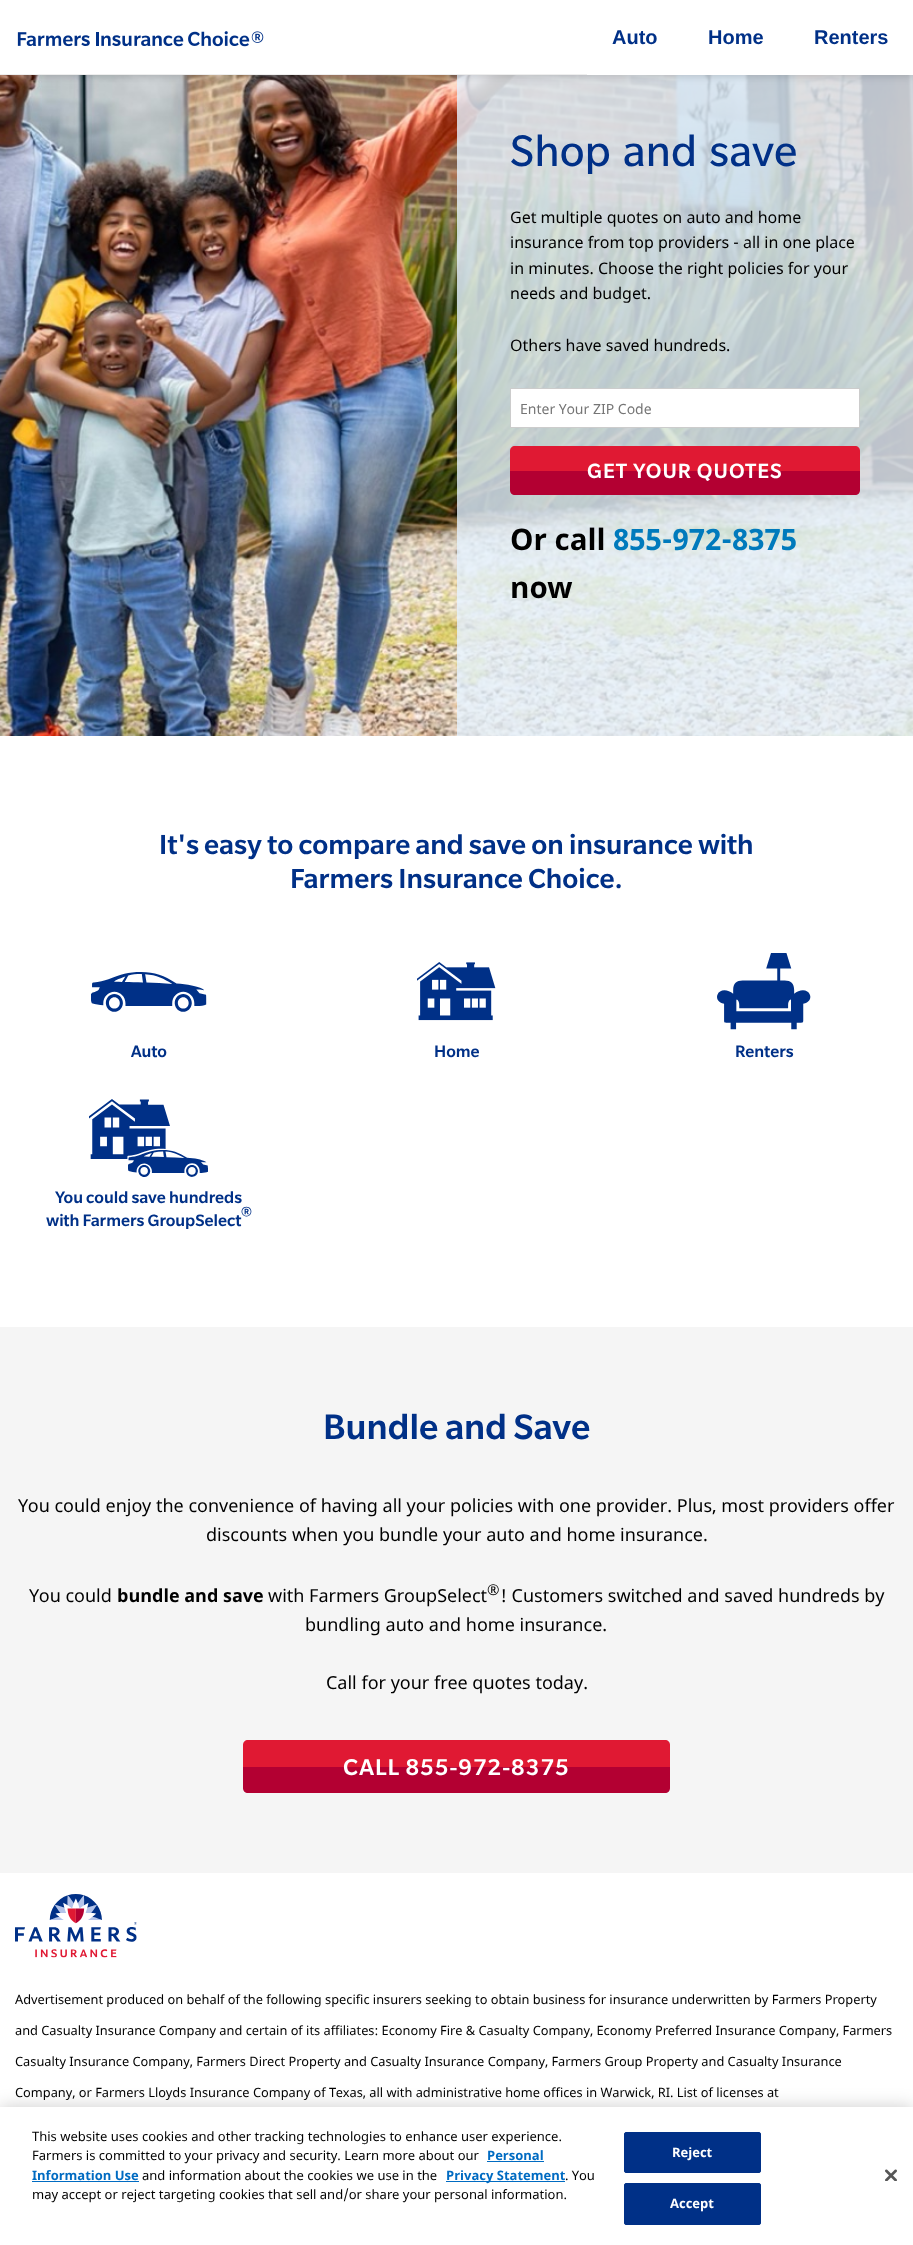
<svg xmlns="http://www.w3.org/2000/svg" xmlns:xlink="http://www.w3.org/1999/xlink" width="913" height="2245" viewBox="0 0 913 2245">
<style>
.cls-1{font:bold 20px Liberation Sans;fill:#003087}
.cls-2{font:48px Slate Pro;fill:#003087}
.cls-3{font:16px Noto Sans;fill:#000000}
.cls-4{font:14px Noto Sans;fill:#757575}
.cls-5{font:500 22.5px Slate Pro;letter-spacing:1px;fill:#ffffff}
.cls-6{font:bold 29.5px Noto Sans;fill:#000000}
.cls-7{font:bold 29.5px Noto Sans;fill:#007abc}
.cls-8{font:500 30px Slate Pro;fill:#003087}
.cls-9{font:500 18px Slate Pro;fill:#003087}
.cls-10{font:500 16px Slate Pro;fill:#003087}
.cls-11{font:500 38.5px Slate Pro;fill:#003087}
.cls-12{font:18px Noto Sans;fill:#000000}
.cls-13{font:bold 18px Noto Sans;fill:#000000}
.cls-14{font:15px Noto Sans;fill:#000000}
.cls-15{font:500 25px Slate Pro;letter-spacing:1px;fill:#ffffff}
.cls-16{font:12.8px Noto Sans;fill:#000000}
.cls-17{font:13px Noto Sans;fill:#000000}
.cls-18{font:bold 13px Noto Sans;fill:#006bc2}
.cls-19{font:bold 13px Noto Sans;fill:#ffffff}
</style>
<rect width="100%" height="100%" fill="#ffffff"/>
<image xlink:href="image1.png" x="0" y="75" width="913" height="661"/>
<rect fill="#e5f3ff" fill-opacity="0.8" x="457" y="75" width="456" height="661"/>
<rect fill="#000000" fill-opacity="0.2" filter="blur(5px)" x="0" y="0" width="913" height="75"/>
<rect fill="#ffffff" x="0" y="0" width="587" height="74"/>
<rect fill="#eeeeee" x="0" y="74" width="587" height="1"/>
<image xlink:href="image0.png" x="17" y="31" width="247" height="16"/>
<rect fill="#ffffff" x="587" y="0" width="326" height="75"/>
<rect fill="#ffffff" stroke="#cccccc" x="510.5" y="388.5" width="349" height="39"/>
<path fill="#e01933" d="M515 446H855C858 446 860 448 860 451V471H510V451C510 448 512 446 515 446Z"/>
<path fill="#b30032" d="M510 471H860V490C860 493 858 495 855 495H515C512 495 510 493 510 490Z"/>
<image xlink:href="image2.png" x="91" y="972" width="116" height="40"/>
<image xlink:href="image3.png" x="417" y="962" width="79" height="59"/>
<image xlink:href="image4.png" x="717" y="953" width="94" height="77"/>
<image xlink:href="image5.png" x="89" y="1099" width="119" height="78"/>
<rect fill="#f5f5f5" x="0" y="1327" width="913" height="546"/>
<path fill="#e01933" d="M248 1740H665C668 1740 670 1742 670 1745V1767H243V1745C243 1742 245 1740 248 1740Z"/>
<path fill="#b30032" d="M243 1767H670V1788C670 1791 668 1793 665 1793H248C245 1793 243 1791 243 1788Z"/>
<image xlink:href="image6.png" x="15" y="1894" width="122" height="64"/>
<rect fill="#000000" fill-opacity="0.2" filter="blur(9px)" x="0" y="2107" width="913" height="138"/>
<rect fill="#ffffff" x="0" y="2107" width="913" height="138"/>
<rect fill="#006bc2" x="487" y="2161" width="57" height="1"/>
<rect fill="#006bc2" x="32" y="2181" width="107" height="1"/>
<rect fill="#006bc2" x="446" y="2181" width="119" height="1"/>
<rect fill="#003087" stroke="#003087" x="624.5" y="2132.5" width="136" height="40" rx="1.5"/>
<rect fill="#003087" stroke="#003087" x="624.5" y="2183.5" width="136" height="41" rx="1.5"/>
<image xlink:href="image7.png" x="885" y="2169" width="12" height="12"/>
<text class="cls-1" x="612" y="44">Auto</text>
<text class="cls-1" x="708" y="44">Home</text>
<text class="cls-1" x="814" y="44">Renters</text>
<text class="cls-2" x="510" y="166">Shop and save</text>
<text class="cls-3"><tspan x="510" y="223">Get multiple quotes on auto and home</tspan><tspan x="510" y="248">insurance from top providers - all in one place</tspan><tspan x="510" y="274">in minutes. Choose the right policies for your</tspan><tspan x="510" y="299">needs and budget.</tspan></text>
<text class="cls-3" x="510" y="351">Others have saved hundreds.</text>
<text class="cls-4" x="520" y="414">Enter Your ZIP Code</text>
<text class="cls-5" x="587" y="478">GET YOUR QUOTES</text>
<text class="cls-6" x="510" y="550">Or call</text>
<text class="cls-7" x="613" y="550">855-972-8375</text>
<text class="cls-6" x="510" y="598">now</text>
<text class="cls-8" x="159" y="854">It's easy to compare and save on insurance with</text>
<text class="cls-8" x="290" y="888">Farmers Insurance Choice.</text>
<text class="cls-9" x="131" y="1057">Auto</text>
<text class="cls-9" x="434" y="1057">Home</text>
<text class="cls-9" x="735" y="1057">Renters</text>
<text class="cls-9" x="55" y="1203">You could save hundreds</text>
<text class="cls-10" x="241" y="1219">®</text>
<text class="cls-9" x="46" y="1226">with Farmers GroupSelect</text>
<text class="cls-11" x="323" y="1439">Bundle and Save</text>
<text class="cls-12" x="18" y="1512">You could enjoy the convenience of having all your policies with one provider. Plus, most providers offer</text>
<text class="cls-12" x="206" y="1541">discounts when you bundle your auto and home insurance.</text>
<text class="cls-12" x="29" y="1602">You could</text>
<text class="cls-13" x="117" y="1602">bundle and save</text>
<text class="cls-12" x="268" y="1602">with Farmers GroupSelect</text>
<text class="cls-14" x="487" y="1595">®</text>
<text class="cls-12" x="500" y="1602">! Customers switched and saved hundreds by</text>
<text class="cls-12" x="305" y="1631">bundling auto and home insurance.</text>
<text class="cls-12" x="326" y="1689">Call for your free quotes today.</text>
<text class="cls-15" x="343" y="1775">CALL 855-972-8375</text>
<text class="cls-16" x="15" y="2004">Advertisement produced on behalf of the following specific insurers seeking to obtain business for insurance underwritten by Farmers Property</text>
<text class="cls-16" x="15" y="2035">and Casualty Insurance Company and certain of its affiliates: Economy Fire &amp; Casualty Company, Economy Preferred Insurance Company, Farmers</text>
<text class="cls-16" x="15" y="2066">Casualty Insurance Company, Farmers Direct Property and Casualty Insurance Company, Farmers Group Property and Casualty Insurance</text>
<text class="cls-16" x="15" y="2097">Company, or Farmers Lloyds Insurance Company of Texas, all with administrative home offices in Warwick, RI. List of licenses at</text>
<text class="cls-17"><tspan x="32" y="2141">This website uses cookies and other tracking technologies to enhance user experience.</tspan><tspan x="32" y="2160">Farmers is committed to your privacy and security. Learn more about our</tspan></text>
<text class="cls-18" x="487" y="2160">Personal</text>
<text class="cls-18" x="32" y="2180">Information Use</text>
<text class="cls-17" x="142" y="2180">and information about the cookies we use in the</text>
<text class="cls-18" x="446" y="2180">Privacy Statement</text>
<text class="cls-17" x="565" y="2180">. You</text>
<text class="cls-17" x="32" y="2199">may accept or reject targeting cookies that sell and/or share your personal information.</text>
<text class="cls-19" x="672" y="2157">Reject</text>
<text class="cls-19" x="670" y="2208">Accept</text>
</svg>
